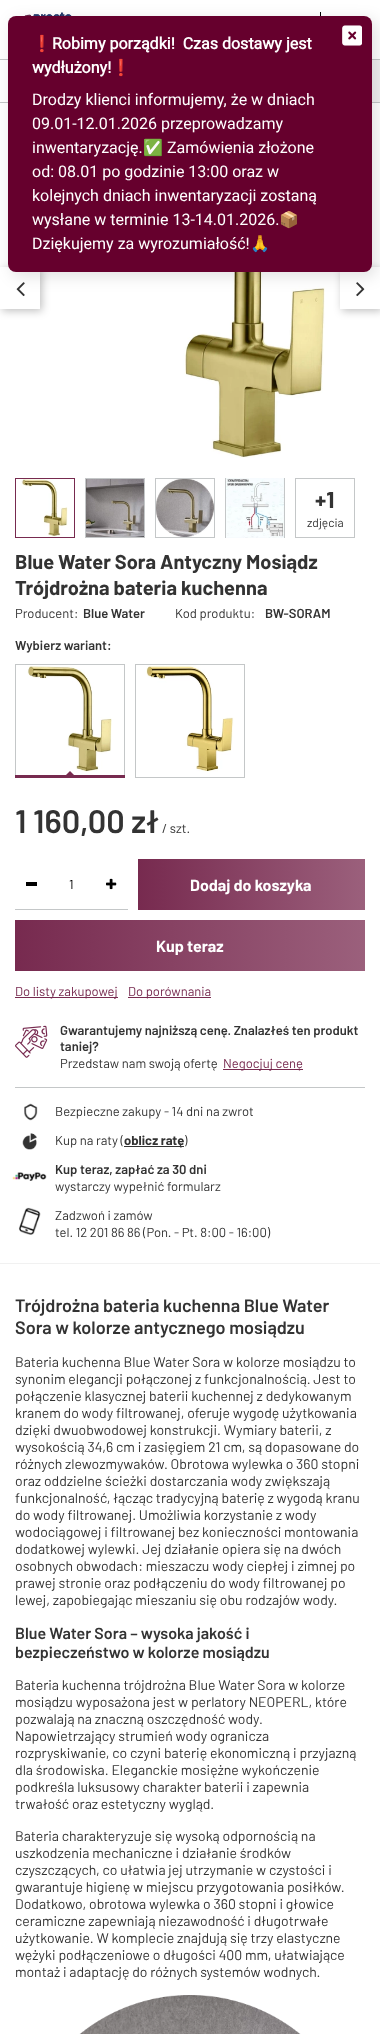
<svg xmlns="http://www.w3.org/2000/svg" xmlns:xlink="http://www.w3.org/1999/xlink" width="380" height="2034" viewBox="0 0 380 2034">
<style>
.cls-1{font:bold 16px Noto Color Emoji;fill:#ffffff}
.cls-2{font:bold 16px Roboto;fill:#ffffff}
.cls-3{font:16px Roboto;fill:#ffffff}
.cls-4{font:16px Noto Color Emoji;fill:#ffffff}
.cls-5{font:bold 23px Barlow;fill:#333333}
.cls-6{font:12px Barlow;fill:#333333}
.cls-7{font:bold 20px Barlow;fill:#333333}
.cls-8{font:13px Barlow;fill:#333333}
.cls-9{font:600 13px Barlow;fill:#333333}
.cls-10{font:600 32.5px Barlow;fill:#333333}
.cls-11{font:13px Barlow;fill:#000000}
.cls-12{font:bold 16px Barlow;fill:#ffffff}
.cls-13{font:13px Barlow;fill:#772a4f}
.cls-14{font:bold 13px Barlow;fill:#333333}
.cls-15{font:600 18px Barlow;fill:#333333}
.cls-16{font:14px Barlow;fill:#333333}
.cls-17{font:600 16px Barlow;fill:#333333}
</style>
<defs>
<clipPath id="clip1"><path d="M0 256H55V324H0ZM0 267H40V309H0Z" clip-rule="evenodd"/></clipPath>
<clipPath id="clip2"><path d="M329 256H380V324H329ZM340 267H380V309H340Z" clip-rule="evenodd"/></clipPath>
<linearGradient id="g1" gradientUnits="userSpaceOnUse" x1="138" y1="885" x2="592" y2="885"><stop offset="0" stop-color="#772a4f"/><stop offset="0.5" stop-color="#9b607c"/><stop offset="1" stop-color="#772a4f"/></linearGradient>
<linearGradient id="g2" gradientUnits="userSpaceOnUse" x1="15" y1="946" x2="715" y2="946"><stop offset="0" stop-color="#772a4f"/><stop offset="0.5" stop-color="#9b607c"/><stop offset="1" stop-color="#772a4f"/></linearGradient>
</defs>
<rect width="100%" height="100%" fill="#ffffff"/>
<rect fill="#c4c7c8" x="0" y="59" width="380" height="1"/>
<image xlink:href="image1.png" x="18" y="12" width="71" height="4"/>
<rect fill="#000000" x="320" y="12" width="1" height="4"/>
<rect fill="#f1f1f1" x="372" y="60" width="8" height="42"/>
<rect fill="#c4c7c8" x="0" y="102" width="380" height="1"/>
<image xlink:href="image3.png" x="54" y="272" width="271" height="186"/>
<g clip-path="url(#clip1)">
<rect fill="#000000" fill-opacity="0.25" filter="blur(4px)" x="2" y="269" width="40" height="42"/>
</g>
<image xlink:href="image2.png" x="16" y="282" width="9" height="15"/>
<g clip-path="url(#clip2)">
<rect fill="#000000" fill-opacity="0.25" filter="blur(4px)" x="342" y="269" width="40" height="42"/>
</g>
<image xlink:href="image4.png" x="356" y="282" width="9" height="15"/>
<rect fill="#000000" fill-opacity="0.12" filter="blur(8px)" x="12" y="20" width="364" height="256" rx="8"/>
<rect fill="#66002d" x="8" y="16" width="364" height="256" rx="8"/>
<image xlink:href="image0.png" x="342" y="25" width="20" height="21"/>
<rect fill="none" stroke="#772a4f" x="15.5" y="478.5" width="59" height="59"/>
<image xlink:href="image5.png" x="21" y="479" width="47" height="58"/>
<rect fill="none" stroke="#c4c7c8" x="85.5" y="478.5" width="59" height="59"/>
<image xlink:href="image6.png" x="86" y="479" width="58" height="58"/>
<rect fill="none" stroke="#c4c7c8" x="155.5" y="478.5" width="59" height="59"/>
<image xlink:href="image7.png" x="156" y="479" width="58" height="58"/>
<rect fill="none" stroke="#c4c7c8" x="225.5" y="478.5" width="59" height="59"/>
<image xlink:href="image8.png" x="226" y="478" width="58" height="60"/>
<rect fill="none" stroke="#c4c7c8" x="295.5" y="478.5" width="59" height="59"/>
<rect fill="none" stroke="#c4c7c8" x="15.5" y="664.5" width="109" height="113"/>
<image xlink:href="image9.png" x="27" y="666" width="85" height="106"/>
<path fill="#772a4f" d="M74 775H66L70 771Z"/>
<rect fill="#772a4f" x="15" y="775" width="110" height="3"/>
<rect fill="none" stroke="#c4c7c8" x="135.5" y="664.5" width="109" height="113"/>
<image xlink:href="image10.png" x="146" y="665" width="88" height="107"/>
<rect fill="#c4c7c8" x="15" y="909" width="113" height="1"/>
<rect fill="#000000" x="26" y="882" width="11" height="4"/>
<image xlink:href="image11.png" x="106" y="878" width="11" height="12"/>
<rect fill="url(#g1)" x="138" y="859" width="227" height="51"/>
<rect fill="url(#g2)" x="15" y="920" width="350" height="51"/>
<rect fill="#772a4f" x="15" y="997" width="103" height="1"/>
<rect fill="#772a4f" x="128" y="997" width="83" height="1"/>
<rect fill="#c4c7c8" x="15" y="1087" width="350" height="1"/>
<image xlink:href="image12.png" x="15" y="1025" width="33" height="33"/>
<rect fill="#772a4f" x="223" y="1069" width="80" height="1"/>
<image xlink:href="image13.png" x="24" y="1103" width="14" height="18"/>
<image xlink:href="image14.png" x="22" y="1133" width="15" height="17"/>
<rect fill="#333333" x="124" y="1146" width="60" height="1"/>
<image xlink:href="image15.png" x="12" y="1172" width="35" height="9"/>
<image xlink:href="image16.png" x="18" y="1207" width="23" height="28"/>
<rect fill="#f1f1f1" x="0" y="1263" width="380" height="1"/>
<image xlink:href="image17.png" x="79" y="1995" width="222" height="39"/>
<text class="cls-1" x="32" y="49">❗</text>
<text class="cls-2" xml:space="preserve" x="52" y="49">Robimy porządki!  Czas dostawy jest</text>
<text class="cls-2" x="32" y="73">wydłużony!</text>
<text class="cls-1" x="111" y="73">❗</text>
<text class="cls-3"><tspan x="32" y="105">Drodzy klienci informujemy, że w dniach</tspan><tspan x="32" y="129">09.01-12.01.2026 przeprowadzamy</tspan><tspan x="32" y="153">inwentaryzację.</tspan></text>
<text class="cls-4" x="143" y="153">✅</text>
<text class="cls-3" x="167" y="153">Zamówienia złożone</text>
<text class="cls-3"><tspan x="32" y="177">od: 08.01 po godzinie 13:00 oraz w</tspan><tspan x="32" y="201">kolejnych dniach inwentaryzacji zostaną</tspan><tspan x="32" y="225">wysłane w terminie 13-14.01.2026.</tspan></text>
<text class="cls-4" x="279" y="225">📦</text>
<text class="cls-3" x="32" y="249">Dziękujemy za wyrozumiałość!</text>
<text class="cls-4" x="250" y="249">🙏</text>
<text class="cls-5" x="315" y="508">+1</text>
<text class="cls-6" x="307" y="527">zdjęcia</text>
<text class="cls-7"><tspan x="15" y="569">Blue Water Sora Antyczny Mosiądz</tspan><tspan x="15" y="595">Trójdrożna bateria kuchenna</tspan></text>
<text class="cls-8" x="15" y="618">Producent:</text>
<text class="cls-9" x="83" y="618">Blue Water</text>
<text class="cls-8" x="175" y="618">Kod produktu:</text>
<text class="cls-9" x="265" y="618">BW-SORAM</text>
<text class="cls-9" x="15" y="650">Wybierz wariant:</text>
<text class="cls-10" x="15" y="833">1 160,00 zł</text>
<text class="cls-8" x="162" y="833">/ szt.</text>
<text class="cls-11" x="69" y="889">1</text>
<text class="cls-12" x="190" y="891">Dodaj do koszyka</text>
<text class="cls-12" x="156" y="952">Kup teraz</text>
<text class="cls-13" x="15" y="996">Do listy zakupowej</text>
<text class="cls-13" x="128" y="996">Do porównania</text>
<text class="cls-9"><tspan x="60" y="1035">Gwarantujemy najniższą cenę. Znalazłeś ten produkt</tspan><tspan x="60" y="1051">taniej?</tspan></text>
<text class="cls-8" x="60" y="1068">Przedstaw nam swoją ofertę</text>
<text class="cls-13" x="223" y="1068">Negocjuj cenę</text>
<text class="cls-8" x="55" y="1116">Bezpieczne zakupy - 14 dni na zwrot</text>
<text class="cls-8" x="55" y="1145">Kup na raty (</text>
<text class="cls-14" x="124" y="1145">oblicz ratę</text>
<text class="cls-8" x="184" y="1145">)</text>
<text class="cls-9" x="55" y="1174">Kup teraz, zapłać za 30 dni</text>
<text class="cls-8" x="55" y="1191">wystarczy wypełnić formularz</text>
<text class="cls-8"><tspan x="55" y="1220">Zadzwoń i zamów</tspan><tspan x="55" y="1237">tel. 12 201 86 86 (Pon. - Pt. 8:00 - 16:00)</tspan></text>
<text class="cls-15"><tspan x="15" y="1312">Trójdrożna bateria kuchenna Blue Water</tspan><tspan x="15" y="1334">Sora w kolorze antycznego mosiądzu</tspan></text>
<text class="cls-16"><tspan x="15" y="1367">Bateria kuchenna Blue Water Sora w kolorze mosiądzu to</tspan><tspan x="15" y="1384">synonim elegancji połączonej z funkcjonalnością. Jest to</tspan><tspan x="15" y="1401">połączenie klasycznej baterii kuchennej z dedykowanym</tspan><tspan x="15" y="1418">kranem do wody filtrowanej, oferuje wygodę użytkowania</tspan><tspan x="15" y="1435">dzięki dwuobwodowej konstrukcji. Wymiary baterii, z</tspan><tspan x="15" y="1452">wysokością 34,6 cm i zasięgiem 21 cm, są dopasowane do</tspan><tspan x="15" y="1469">różnych zlewozmywaków. Obrotowa wylewka o 360 stopni</tspan><tspan x="15" y="1486">oraz oddzielne ścieżki dostarczania wody zwiększają</tspan><tspan x="15" y="1503">funkcjonalność, łącząc tradycyjną baterię z wygodą kranu</tspan><tspan x="15" y="1520">do wody filtrowanej. Umożliwia korzystanie z wody</tspan><tspan x="15" y="1537">wodociągowej i filtrowanej bez konieczności montowania</tspan><tspan x="15" y="1554">dodatkowej wylewki. Jej działanie opiera się na dwóch</tspan><tspan x="15" y="1571">osobnych obwodach: mieszaczu wody ciepłej i zimnej po</tspan><tspan x="15" y="1588">prawej stronie oraz podłączeniu do wody filtrowanej po</tspan><tspan x="15" y="1605">lewej, zapobiegając mieszaniu się obu rodzajów wody.</tspan></text>
<text class="cls-17"><tspan x="15" y="1639">Blue Water Sora – wysoka jakość i</tspan><tspan x="15" y="1658">bezpieczeństwo w kolorze mosiądzu</tspan></text>
<text class="cls-16"><tspan x="15" y="1690">Bateria kuchenna trójdrożna Blue Water Sora w kolorze</tspan><tspan x="15" y="1707">mosiądzu wyposażona jest w perlatory NEOPERL, które</tspan><tspan x="15" y="1724">pozwalają na znaczną oszczędność wody.</tspan><tspan x="15" y="1741">Napowietrzający strumień wody ogranicza</tspan><tspan x="15" y="1758">rozpryskiwanie, co czyni baterię ekonomiczną i przyjazną</tspan><tspan x="15" y="1775">dla środowiska. Eleganckie mosiężne wykończenie</tspan><tspan x="15" y="1792">podkreśla luksusowy charakter baterii i zapewnia</tspan><tspan x="15" y="1809">trwałość oraz estetyczny wygląd.</tspan></text>
<text class="cls-16"><tspan x="15" y="1841">Bateria charakteryzuje się wysoką odpornością na</tspan><tspan x="15" y="1858">uszkodzenia mechaniczne i działanie środków</tspan><tspan x="15" y="1875">czyszczących, co ułatwia jej utrzymanie w czystości i</tspan><tspan x="15" y="1892">gwarantuje higienę w miejscu przygotowania posiłków.</tspan><tspan x="15" y="1909">Dodatkowo, obrotowa wylewka o 360 stopni i głowice</tspan><tspan x="15" y="1926">ceramiczne zapewniają niezawodność i długotrwałe</tspan><tspan x="15" y="1943">użytkowanie. W komplecie znajdują się trzy elastyczne</tspan><tspan x="15" y="1960">wężyki podłączeniowe o długości 400 mm, ułatwiające</tspan><tspan x="15" y="1977">montaż i adaptację do różnych systemów wodnych.</tspan></text>
</svg>
